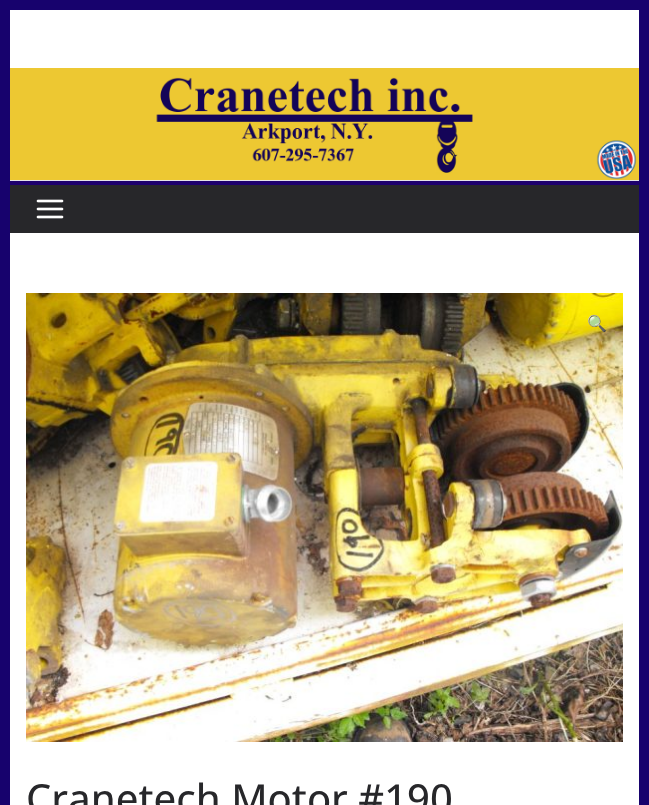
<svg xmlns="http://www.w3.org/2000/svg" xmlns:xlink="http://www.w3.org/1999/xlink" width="649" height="805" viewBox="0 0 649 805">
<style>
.cls-1{font:16px Noto Color Emoji;fill:#1d006d}
.cls-2{font:500 40px Open Sans;fill:#27272a}
</style>
<rect width="100%" height="100%" fill="#17026d"/>
<rect fill="#ffffff" x="10" y="10" width="629" height="58"/>
<image xlink:href="image0.png" x="10" y="68" width="629" height="112"/>
<rect fill="#e4e4e7" x="10" y="180" width="629" height="1"/>
<rect fill="#27272a" x="10" y="185" width="629" height="48"/>
<rect fill="#1d006d" x="10" y="181" width="629" height="4"/>
<image xlink:href="image1.png" x="36" y="199" width="28" height="20"/>
<rect fill="#ffffff" x="10" y="233" width="629" height="572"/>
<image xlink:href="image2.png" x="26" y="293" width="597" height="449"/>
<text class="cls-1" x="587" y="329">🔍</text>
<text class="cls-2" x="26" y="813">Cranetech Motor #190</text>
</svg>
